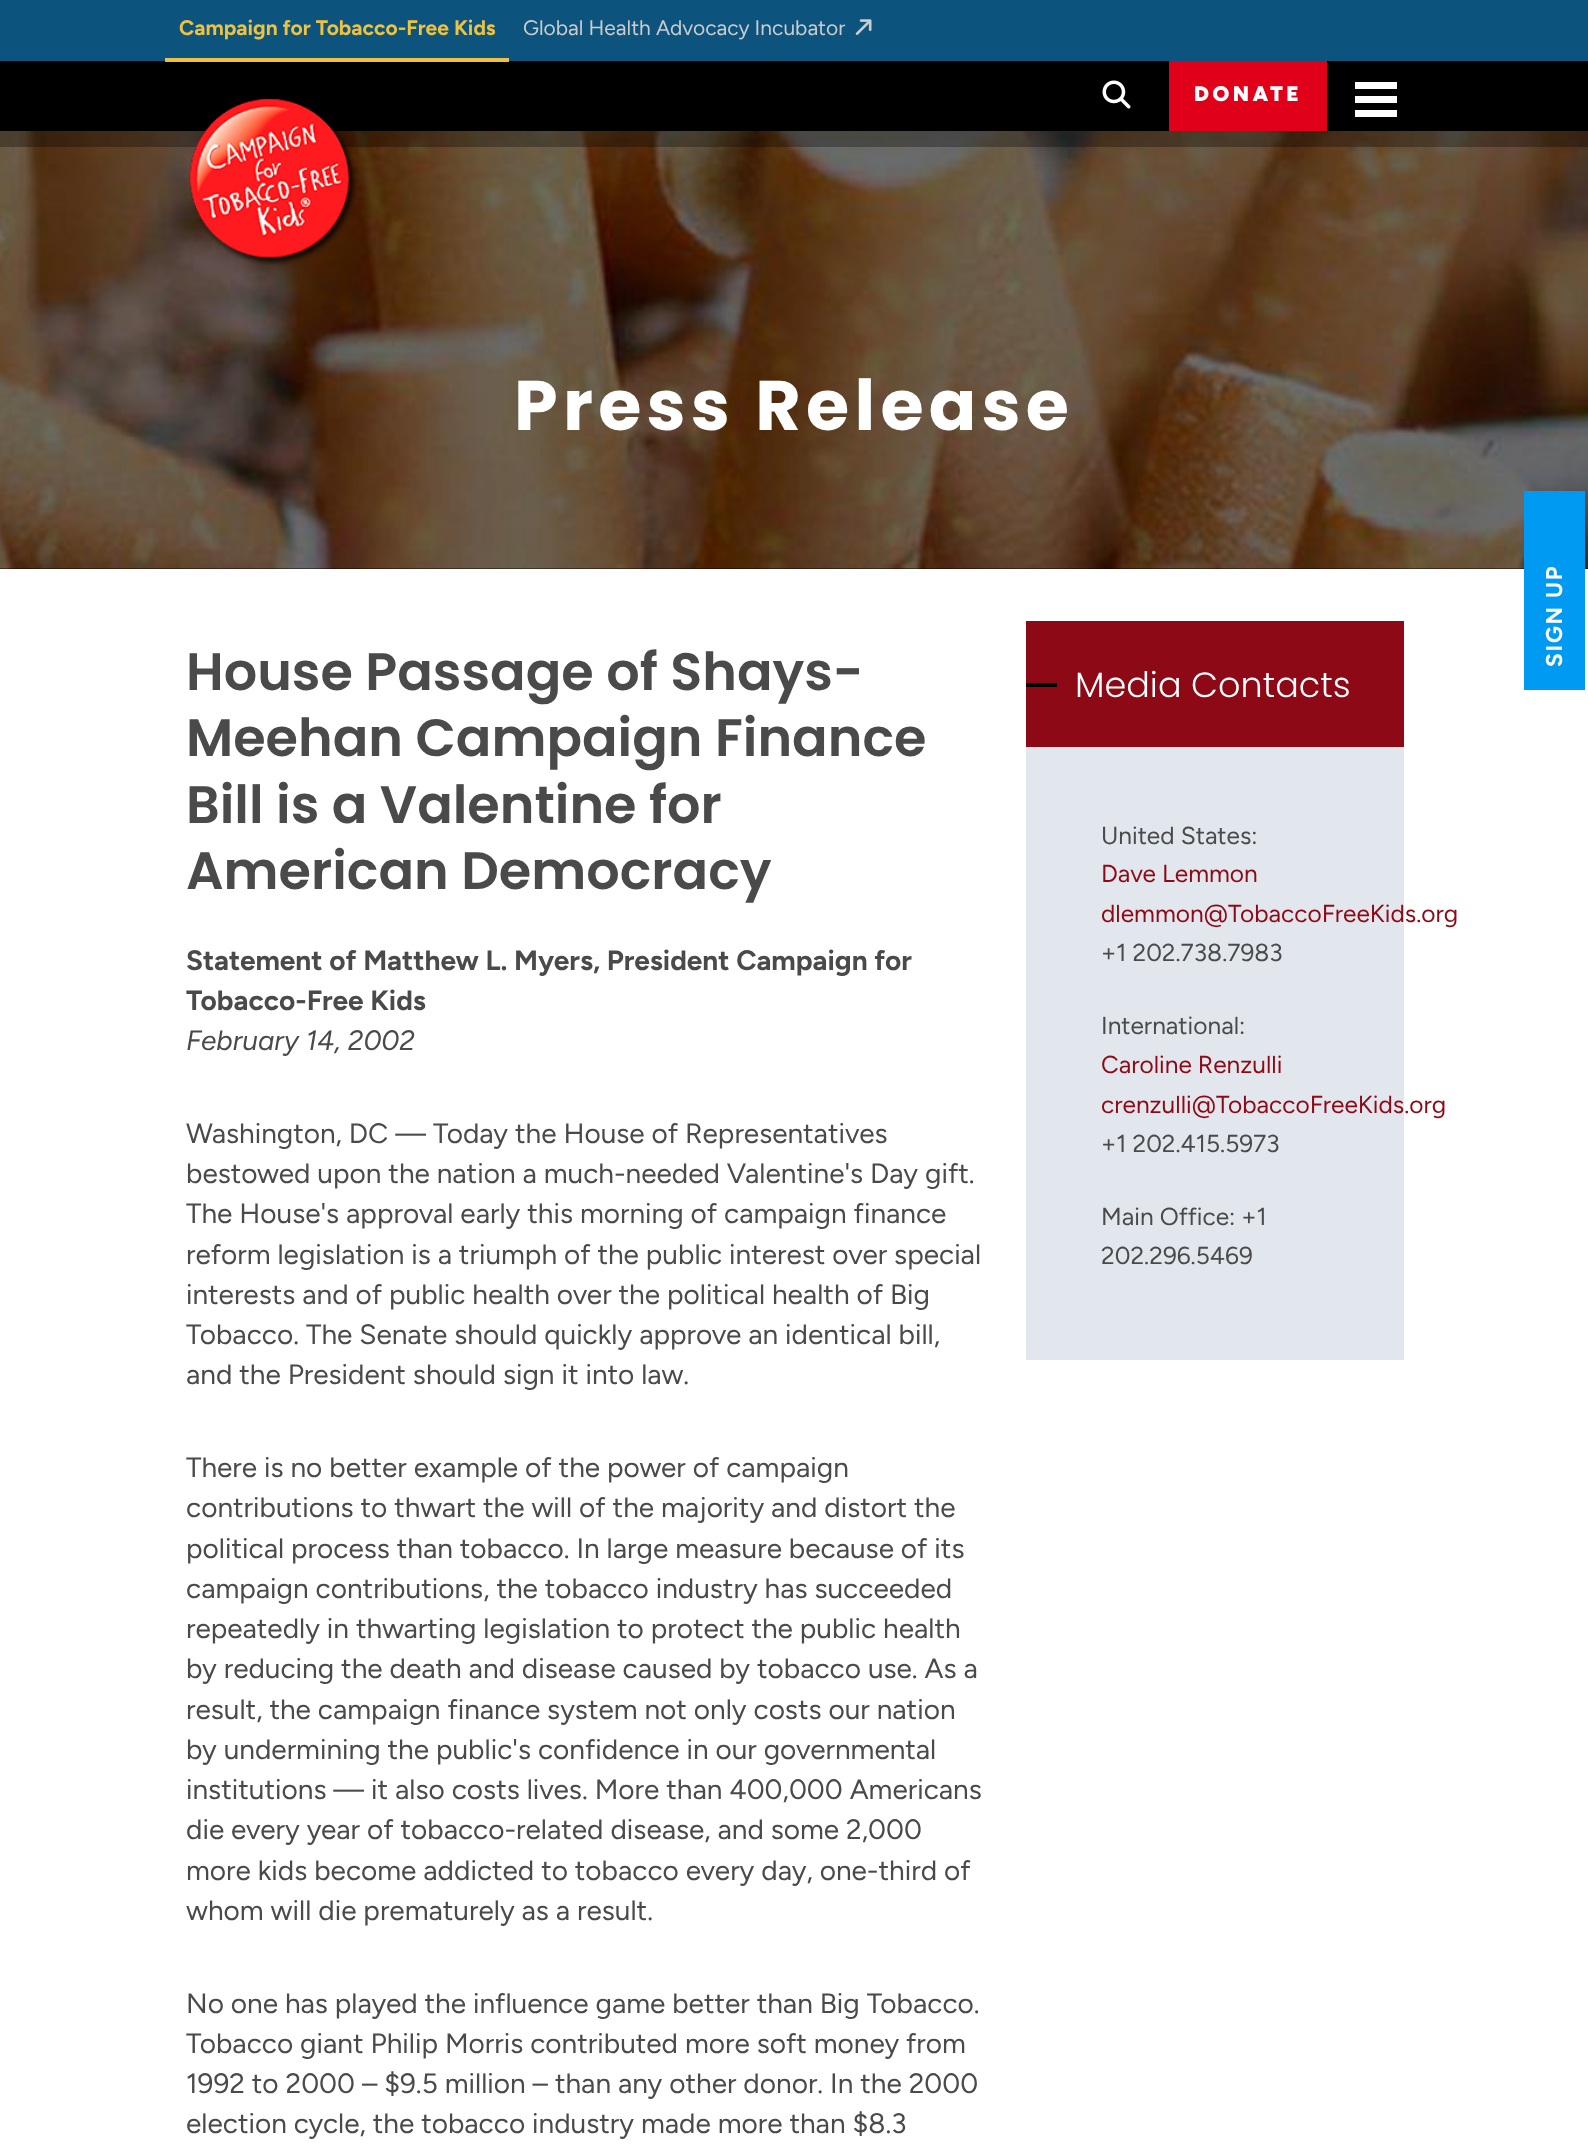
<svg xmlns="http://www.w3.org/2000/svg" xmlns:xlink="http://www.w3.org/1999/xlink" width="1588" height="2146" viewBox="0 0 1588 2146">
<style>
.cls-1{font:bold 21px Figtree;fill:#edc241}
.cls-2{font:21px Figtree;fill:#cccccc}
.cls-3{font:900 21px Figtree;letter-spacing:3.5px;fill:#ffffff}
.cls-4{font:bold 70px Poppins;letter-spacing:5.25px;fill:#ffffff}
.cls-5{font:bold 22.75px Figtree;letter-spacing:1.75px;fill:#ffffff}
.cls-6{font:600 52.5px Poppins;fill:#4a4a4a}
.cls-7{font:bold 28px Figtree;fill:#4a4a4a}
.cls-8{font:italic 28px Figtree;fill:#4a4a4a}
.cls-9{font:28px Figtree;fill:#4a4a4a}
.cls-10{font:300 35px Poppins;fill:#ffffff}
.cls-11{font:24.5px Figtree;fill:#4a4a4a}
.cls-12{font:24.5px Figtree;fill:#8d0916}
</style>
<rect width="100%" height="100%" fill="#ffffff"/>
<rect fill="#0c547e" x="0" y="0" width="1588" height="61"/>
<rect fill="#000000" x="0" y="61" width="1588" height="70"/>
<rect fill="#edc241" x="165" y="58" width="344" height="4"/>
<image xlink:href="image0.png" x="855" y="19" width="17" height="16"/>
<image xlink:href="image1.png" x="1102" y="80" width="29" height="29"/>
<rect fill="#e1001a" x="1169" y="61" width="158" height="70"/>
<rect fill="#ffffff" x="1355" y="82" width="42" height="7"/>
<rect fill="#ffffff" x="1355" y="96" width="42" height="7"/>
<rect fill="#ffffff" x="1355" y="110" width="42" height="7"/>
<rect fill="#000000" x="0" y="568" width="1588" height="1"/>
<image xlink:href="image3.png" x="0" y="131" width="1588" height="438"/>
<rect fill="#000000" fill-opacity="0.3" x="0" y="131" width="1588" height="16"/>
<image xlink:href="image2.png" x="189" y="98" width="168" height="167"/>
<rect fill="#009af2" x="1524" y="491" width="61" height="199"/>
<rect fill="#8d0916" x="1026" y="621" width="378" height="126"/>
<rect fill="#000000" x="1026" y="683" width="31" height="4"/>
<rect fill="#e2e7ed" x="1026" y="747" width="378" height="613"/>
<text class="cls-1" x="179" y="35">Campaign for Tobacco-Free Kids</text>
<text class="cls-2" x="523" y="35">Global Health Advocacy Incubator</text>
<text class="cls-3" x="1194" y="101">DONATE</text>
<text class="cls-4" x="514" y="430">Press Release</text>
<text class="cls-5" x="1562" y="667" transform="rotate(-90 1562 667)">SIGN UP</text>
<text class="cls-6"><tspan x="186" y="690">House Passage of Shays-</tspan><tspan x="186" y="756">Meehan Campaign Finance</tspan><tspan x="186" y="823">Bill is a Valentine for</tspan><tspan x="186" y="889">American Democracy</tspan></text>
<text class="cls-7"><tspan x="186" y="970">Statement of Matthew L. Myers, President Campaign for</tspan><tspan x="186" y="1010">Tobacco-Free Kids</tspan></text>
<text class="cls-8" x="186" y="1050">February 14, 2002</text>
<text class="cls-9"><tspan x="186" y="1143">Washington, DC — Today the House of Representatives</tspan><tspan x="186" y="1183">bestowed upon the nation a much-needed Valentine's Day gift.</tspan><tspan x="186" y="1223">The House's approval early this morning of campaign finance</tspan><tspan x="186" y="1264">reform legislation is a triumph of the public interest over special</tspan><tspan x="186" y="1304">interests and of public health over the political health of Big</tspan><tspan x="186" y="1344">Tobacco. The Senate should quickly approve an identical bill,</tspan><tspan x="186" y="1384">and the President should sign it into law.</tspan></text>
<text class="cls-9"><tspan x="186" y="1477">There is no better example of the power of campaign</tspan><tspan x="186" y="1517">contributions to thwart the will of the majority and distort the</tspan><tspan x="186" y="1558">political process than tobacco. In large measure because of its</tspan><tspan x="186" y="1598">campaign contributions, the tobacco industry has succeeded</tspan><tspan x="186" y="1638">repeatedly in thwarting legislation to protect the public health</tspan><tspan x="186" y="1678">by reducing the death and disease caused by tobacco use. As a</tspan><tspan x="186" y="1719">result, the campaign finance system not only costs our nation</tspan><tspan x="186" y="1759">by undermining the public's confidence in our governmental</tspan><tspan x="186" y="1799">institutions — it also costs lives. More than 400,000 Americans</tspan><tspan x="186" y="1839">die every year of tobacco-related disease, and some 2,000</tspan><tspan x="186" y="1880">more kids become addicted to tobacco every day, one-third of</tspan><tspan x="186" y="1920">whom will die prematurely as a result.</tspan></text>
<text class="cls-9"><tspan x="186" y="2013">No one has played the influence game better than Big Tobacco.</tspan><tspan x="186" y="2053">Tobacco giant Philip Morris contributed more soft money from</tspan><tspan x="186" y="2093">1992 to 2000 – $9.5 million – than any other donor. In the 2000</tspan><tspan x="186" y="2133">election cycle, the tobacco industry made more than $8.3</tspan></text>
<text class="cls-10" x="1075" y="697">Media Contacts</text>
<text class="cls-11" x="1101" y="844">United States:</text>
<text class="cls-12"><tspan x="1101" y="882">Dave Lemmon</tspan><tspan x="1101" y="922">dlemmon@TobaccoFreeKids.org</tspan></text>
<text class="cls-11" x="1101" y="961">+1 202.738.7983</text>
<text class="cls-11" x="1101" y="1034">International:</text>
<text class="cls-12"><tspan x="1101" y="1073">Caroline Renzulli</tspan><tspan x="1101" y="1113">crenzulli@TobaccoFreeKids.org</tspan></text>
<text class="cls-11" x="1101" y="1152">+1 202.415.5973</text>
<text class="cls-11"><tspan x="1101" y="1225">Main Office: +1</tspan><tspan x="1101" y="1264">202.296.5469</tspan></text>
</svg>
